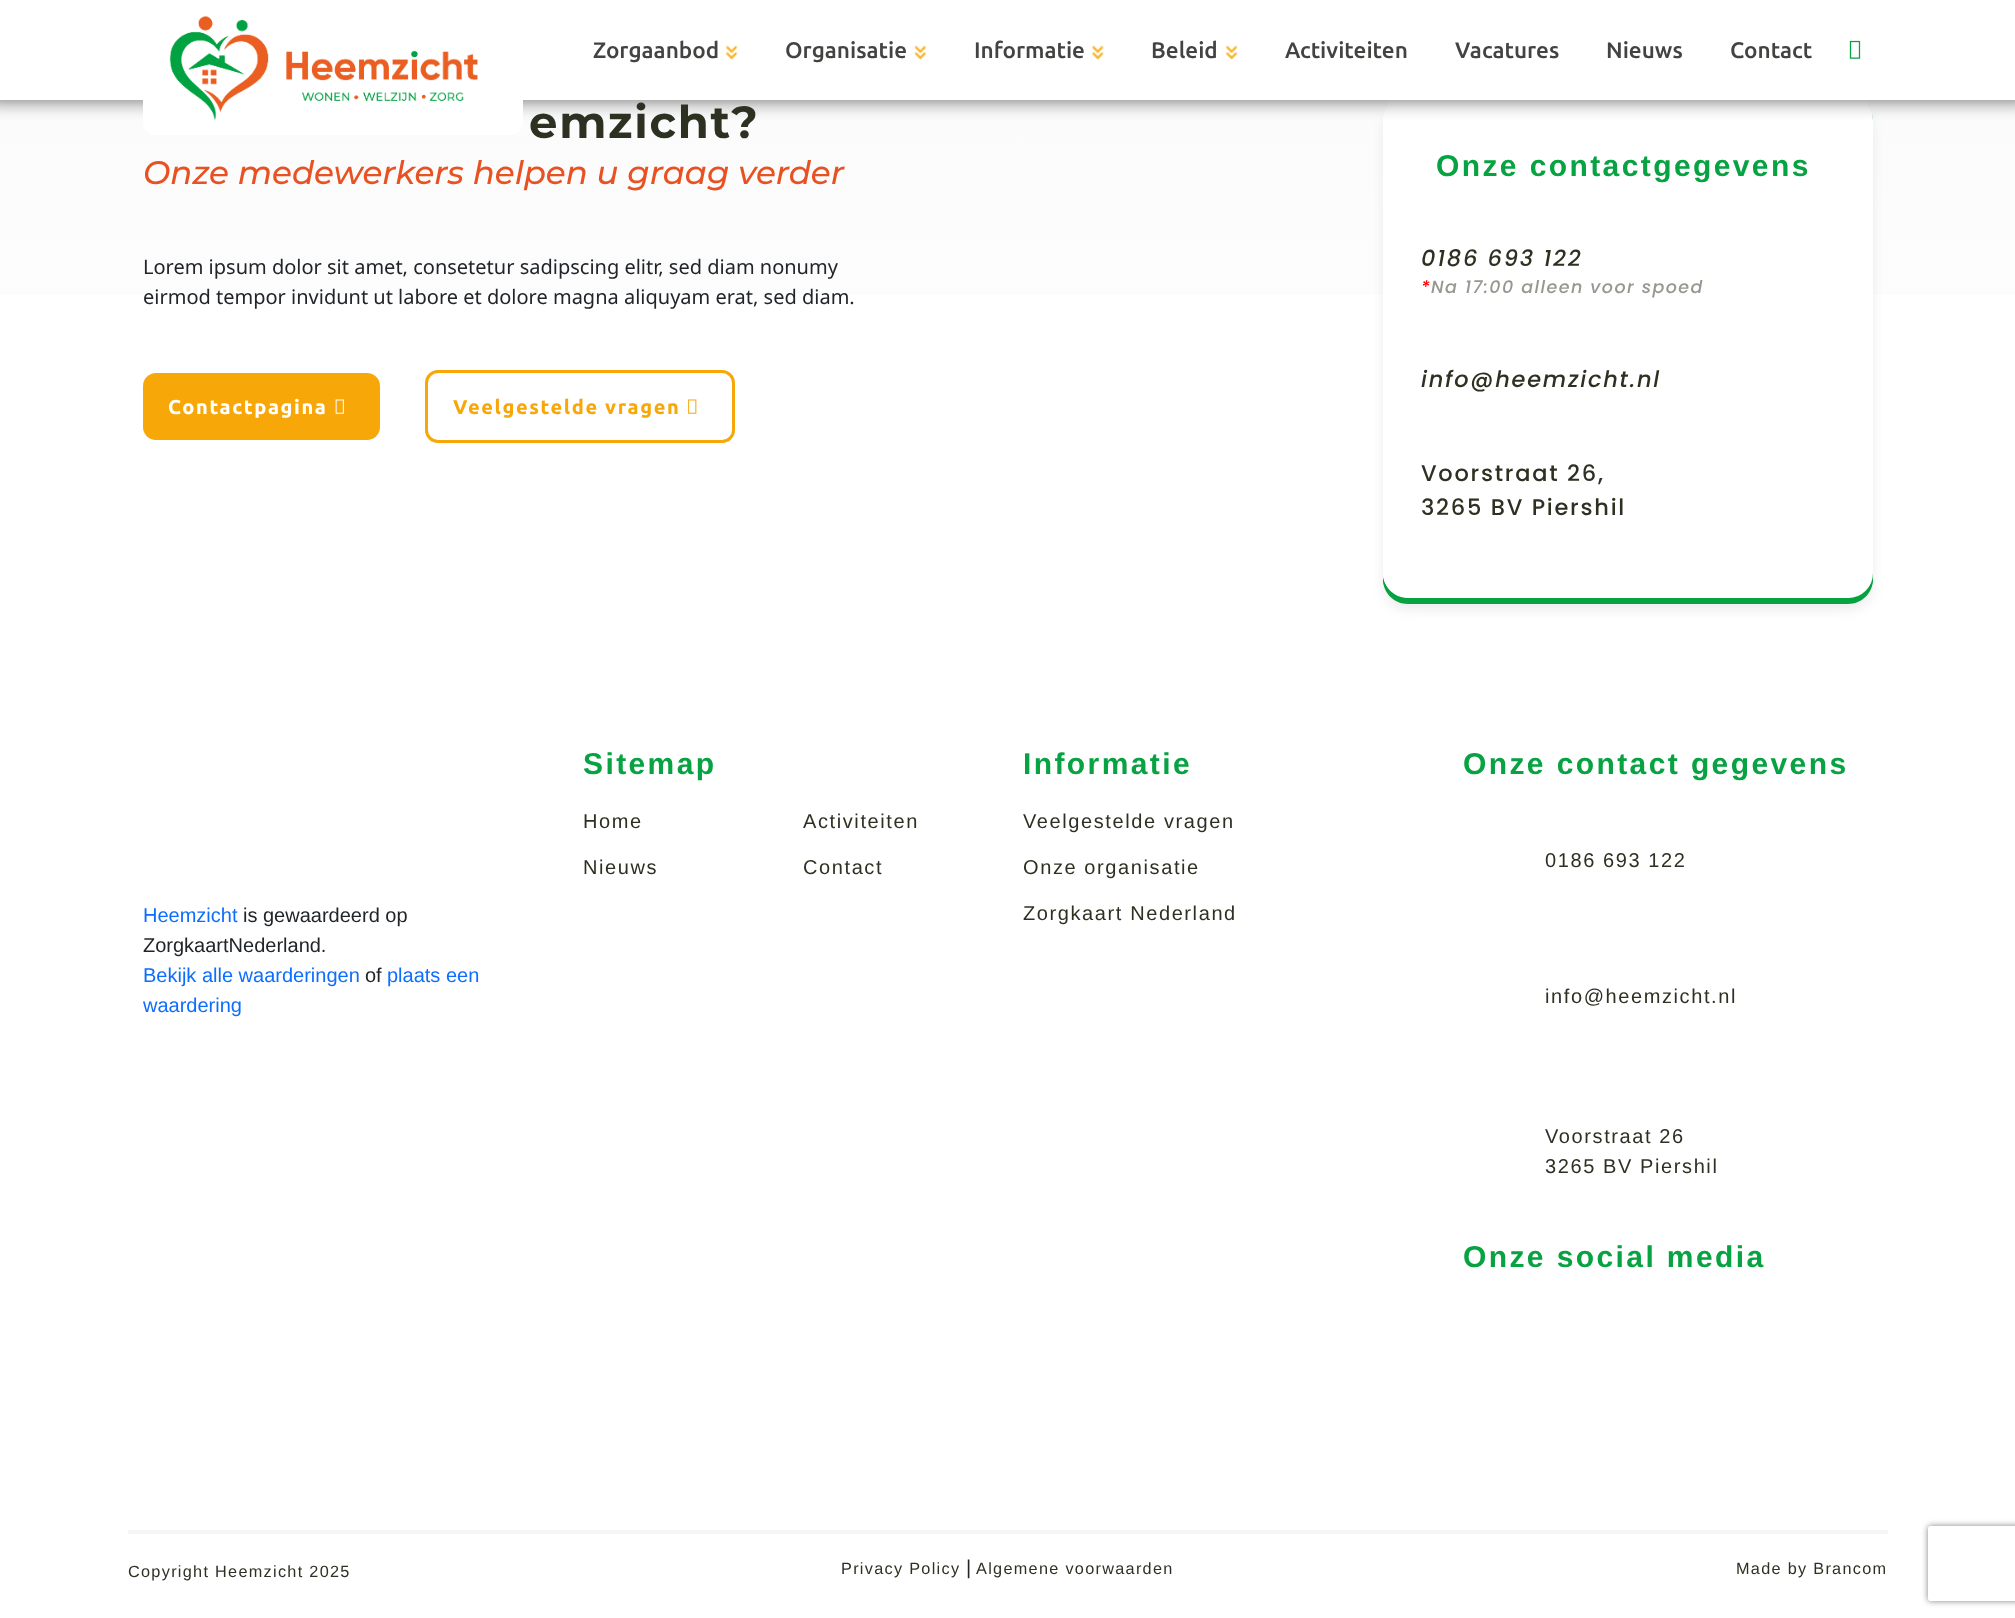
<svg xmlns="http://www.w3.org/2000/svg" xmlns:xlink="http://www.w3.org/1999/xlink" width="2015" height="1618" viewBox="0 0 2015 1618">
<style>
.cls-1{font:500 22.5px Ubuntu;fill:#434342}
.cls-2{font:bold 45px Montserrat;letter-spacing:1.75px;fill:#2d3122}
.cls-3{font:italic 500 32.5px Montserrat;fill:#e85222}
.cls-4{font:20px Noto Sans;fill:#212529}
.cls-5{font:bold 20px Ubuntu;letter-spacing:1.6px;fill:#ffffff}
.cls-6{font:bold 20px Ubuntu;letter-spacing:1.6px;fill:#f7a707}
.cls-7{font:bold 30px Liberation Sans;letter-spacing:2.4px;fill:#07a241}
.cls-8{font:italic 500 22.5px Poppins;letter-spacing:1.75px;fill:#2d3122}
.cls-9{font:italic 500 17.5px Poppins;letter-spacing:1.4px;fill:#ff0000}
.cls-10{font:italic 500 17.5px Poppins;letter-spacing:1.4px;fill:#969890}
.cls-11{font:500 22.5px Poppins;letter-spacing:1.75px;fill:#2d3122}
.cls-12{font:20px Liberation Sans;fill:#0d6efd}
.cls-13{font:20px Liberation Sans;fill:#212529}
.cls-14{font:20px Liberation Sans;letter-spacing:1.6px;fill:#2d3122}
.cls-15{font:16.25px Liberation Sans;letter-spacing:1.3px;fill:#2d3122}
</style>
<defs>
<linearGradient id="g1" gradientUnits="userSpaceOnUse" x1="1008" y1="-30" x2="1008" y2="620"><stop offset="0" stop-color="#fafafa"/><stop offset="1" stop-color="#ffffff"/></linearGradient>
<clipPath id="clip1"><path d="M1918 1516H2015V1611H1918ZM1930.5 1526H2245.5C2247 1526 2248 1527 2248 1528.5V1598.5C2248 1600 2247 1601 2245.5 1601H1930.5C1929 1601 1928 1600 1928 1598.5V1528.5C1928 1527 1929 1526 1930.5 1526Z" clip-rule="evenodd"/></clipPath>
</defs>
<rect width="100%" height="100%" fill="#ffffff"/>
<rect fill="url(#g1)" x="0" y="100" width="2015" height="195"/>
<rect fill="#dcdcdc" fill-opacity="0.5" filter="blur(6px)" x="1383" y="108" width="490" height="502" rx="25"/>
<path fill="#07a241" d="M1383 577V579C1383 593 1394 604 1408 604H1848C1862 604 1873 593 1873 579V126L1872 121V572C1872 586 1861 598 1848 598H1408C1395 598 1385 589 1383 577Z"/>
<path fill="#07a241" d="M1383 577V578C1383 592 1394 603 1408 603H1848C1862 603 1873 592 1873 578V125L1872 120V572C1872 586 1861 598 1848 598H1408C1395 598 1385 589 1383 577Z"/>
<path fill="#07a241" d="M1383 578C1384 591 1395 601 1408 601H1848C1862 601 1873 590 1873 576V124L1872 119V572C1872 586 1861 598 1848 598H1408C1396 598 1385 589 1383 578Z"/>
<path fill="#07a241" d="M1383 579C1385 591 1395 600 1408 600H1848C1862 600 1873 589 1873 575V123L1872 117V572C1872 586 1861 598 1848 598H1408C1396 598 1386 589 1383 579Z"/>
<path fill="#07a241" d="M1384 581C1387 591 1397 599 1408 599H1848C1862 599 1873 588 1873 574V121C1873 117 1872 113 1870 109C1872 113 1872 116 1872 120V572C1872 586 1861 598 1848 598H1408C1397 598 1388 591 1384 581Z"/>
<rect fill="#ffffff" stroke="#ffffff" stroke-width="4" x="1385" y="97" width="486" height="499" rx="23"/>
<rect fill="#646464" filter="blur(9.5px)" x="-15" y="0" width="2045" height="100"/>
<rect fill="#ffffff" x="0" y="0" width="2015" height="100"/>
<rect fill="#ffffff" x="143" y="0" width="380" height="135" rx="13"/>
<image xlink:href="image0.png" x="169" y="15" width="309" height="105"/>
<image xlink:href="image1.png" x="726" y="45" width="12" height="15"/>
<image xlink:href="image2.png" x="914" y="45" width="13" height="16"/>
<image xlink:href="image3.png" x="1092" y="45" width="12" height="16"/>
<image xlink:href="image4.png" x="1226" y="45" width="12" height="15"/>
<image xlink:href="image5.png" x="1849" y="40" width="12" height="19"/>
<rect fill="#f7a707" x="143" y="373" width="237" height="67" rx="13"/>
<image xlink:href="image6.png" x="335" y="399" width="9" height="15"/>
<rect fill="none" stroke="#f7a707" stroke-width="3" x="426.5" y="371.5" width="307" height="70" rx="11.5"/>
<image xlink:href="image7.png" x="688" y="399" width="9" height="15"/>
<rect fill="#f5f5f5" x="128" y="1530" width="1760" height="4"/>
<g clip-path="url(#clip1)">
<rect fill="#808080" filter="blur(3px)" x="1928" y="1526" width="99" height="75" rx="2.5"/>
</g>
<text class="cls-1" x="593" y="58">Zorgaanbod</text>
<text class="cls-1" x="785" y="58">Organisatie</text>
<text class="cls-1" x="974" y="58">Informatie</text>
<text class="cls-1" x="1151" y="58">Beleid</text>
<text class="cls-1" x="1285" y="58">Activiteiten</text>
<text class="cls-1" x="1455" y="58">Vacatures</text>
<text class="cls-1" x="1606" y="58">Nieuws</text>
<text class="cls-1" x="1730" y="58">Contact</text>
<text class="cls-2" x="529" y="138">emzicht?</text>
<text class="cls-3" x="143" y="184">Onze medewerkers helpen u graag verder</text>
<text class="cls-4"><tspan x="143" y="274">Lorem ipsum dolor sit amet, consetetur sadipscing elitr, sed diam nonumy</tspan><tspan x="143" y="304">eirmod tempor invidunt ut labore et dolore magna aliquyam erat, sed diam.</tspan></text>
<text class="cls-5" x="168" y="414">Contactpagina</text>
<text class="cls-6" x="453" y="414">Veelgestelde vragen</text>
<text class="cls-7" x="1436" y="176">Onze contactgegevens</text>
<text class="cls-8" x="1421" y="266">0186 693 122</text>
<text class="cls-9" x="1421" y="293">*</text>
<text class="cls-10" x="1431" y="293">Na 17:00 alleen voor spoed</text>
<text class="cls-8" x="1421" y="387">info@heemzicht.nl</text>
<text class="cls-11"><tspan x="1421" y="481">Voorstraat 26,</tspan><tspan x="1421" y="515">3265 BV Piershil</tspan></text>
<text class="cls-12" x="143" y="922">Heemzicht</text>
<text class="cls-13" x="243" y="922">is gewaardeerd op</text>
<text class="cls-13" x="143" y="952">ZorgkaartNederland.</text>
<text class="cls-12" x="143" y="982">Bekijk alle waarderingen</text>
<text class="cls-13" x="365" y="982">of</text>
<text class="cls-12" x="387" y="982">plaats een</text>
<text class="cls-12" x="143" y="1012">waardering</text>
<text class="cls-7" x="583" y="774">Sitemap</text>
<text class="cls-14" x="583" y="828">Home</text>
<text class="cls-14" x="803" y="828">Activiteiten</text>
<text class="cls-14" x="583" y="874">Nieuws</text>
<text class="cls-14" x="803" y="874">Contact</text>
<text class="cls-7" x="1023" y="774">Informatie</text>
<text class="cls-14" x="1023" y="828">Veelgestelde vragen</text>
<text class="cls-14" x="1023" y="874">Onze organisatie</text>
<text class="cls-14" x="1023" y="920">Zorgkaart Nederland</text>
<text class="cls-7" x="1463" y="774">Onze contact gegevens</text>
<text class="cls-14" x="1545" y="867">0186 693 122</text>
<text class="cls-14" x="1545" y="1003">info@heemzicht.nl</text>
<text class="cls-14"><tspan x="1545" y="1143">Voorstraat 26</tspan><tspan x="1545" y="1173">3265 BV Piershil</tspan></text>
<text class="cls-7" x="1463" y="1267">Onze social media</text>
<text class="cls-15" x="128" y="1577">Copyright Heemzicht 2025</text>
<text class="cls-15" x="841" y="1574">Privacy Policy</text>
<text class="cls-13" x="966" y="1574">|</text>
<text class="cls-15" x="976" y="1574">Algemene voorwaarden</text>
<text class="cls-15" x="1736" y="1574">Made by Brancom</text>
</svg>
